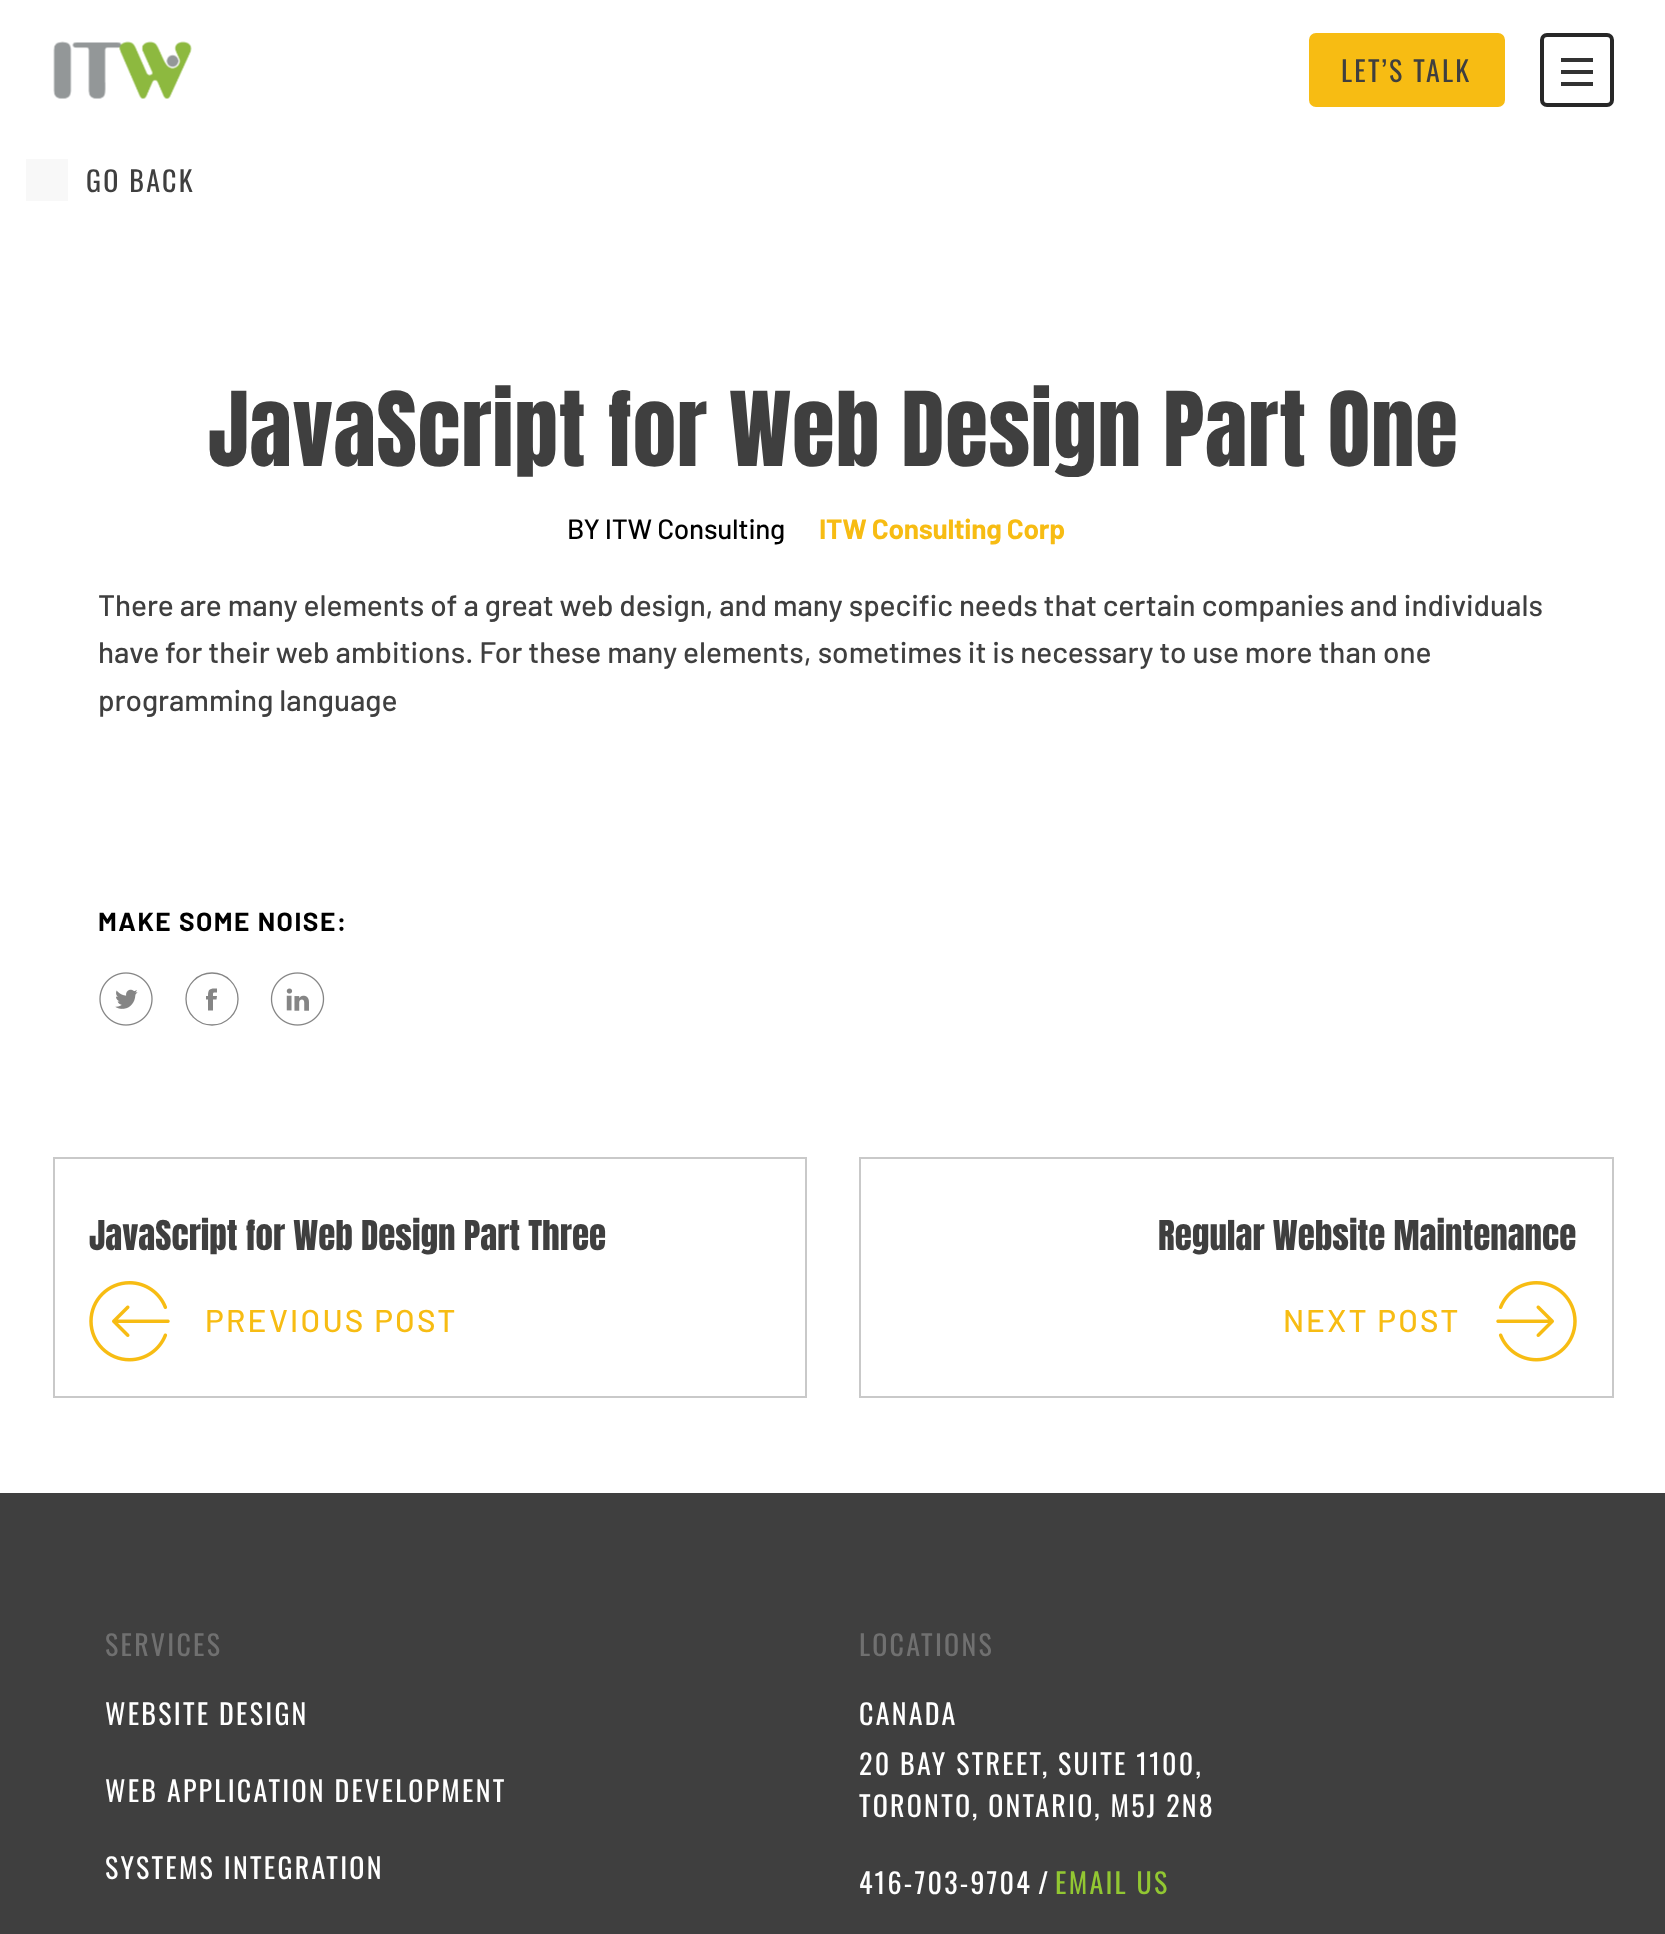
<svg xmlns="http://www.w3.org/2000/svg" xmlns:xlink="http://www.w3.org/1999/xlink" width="1665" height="1934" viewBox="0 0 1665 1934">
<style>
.cls-1{font:28px Oswald;letter-spacing:2.25px;fill:#3f3f3f}
.cls-2{font:87.5px Anton;letter-spacing:0.7px;fill:#3f3f3f}
.cls-3{font:500 28px Barlow;letter-spacing:-0.3px;fill:#000000}
.cls-4{font:bold 28px Barlow;letter-spacing:-0.3px;fill:#f7bc13}
.cls-5{font:500 29.75px Barlow;fill:#3f3f3f}
.cls-6{font:bold 26.25px Barlow;letter-spacing:1.5px;fill:#000000}
.cls-7{font:35px Anton;fill:#3f3f3f}
.cls-8{font:500 31.5px Barlow;letter-spacing:2.25px;fill:#f7bc13}
.cls-9{font:28px Oswald;letter-spacing:2.25px;fill:#707070}
.cls-10{font:28px Oswald;letter-spacing:2.25px;fill:#ffffff}
.cls-11{font:28px Oswald;letter-spacing:2.25px;fill:#92c732}
</style>
<rect width="100%" height="100%" fill="#ffffff"/>
<image xlink:href="image0.png" x="53" y="41" width="139" height="58"/>
<rect fill="#f7bc13" stroke="#f7bc13" stroke-width="4" x="1311" y="35" width="192" height="70" rx="5"/>
<rect fill="#323232" x="1561" y="58" width="32" height="4"/>
<rect fill="#323232" x="1561" y="70" width="32" height="4"/>
<rect fill="none" stroke="#272727" stroke-width="4" x="1542" y="35" width="70" height="70" rx="5"/>
<rect fill="#323232" x="1561" y="82" width="32" height="4"/>
<rect fill="#f8f8f8" x="26" y="159" width="42" height="42"/>
<image xlink:href="image1.png" x="99" y="972" width="54" height="54"/>
<path fill="#858585" fill-rule="evenodd" d="M213 999.5H216.5L217 996H213C213 992 213 992.5 217 992.5V988.5C210 988.5 208 988.5 208 996H206V999.5H208V1010.5H213Z"/>
<circle fill="none" stroke="#858585" stroke-width="1.3" cx="212" cy="999" r="26"/>
<image xlink:href="image2.png" x="270" y="972" width="55" height="54"/>
<rect fill="none" stroke="#c9c9c9" stroke-width="2" x="54" y="1158" width="752" height="239"/>
<image xlink:href="image3.png" x="89" y="1281" width="81" height="81"/>
<rect fill="none" stroke="#c9c9c9" stroke-width="2" x="860" y="1158" width="753" height="239"/>
<image xlink:href="image4.png" x="1496" y="1281" width="81" height="81"/>
<rect fill="#3f3f3f" x="0" y="1493" width="1665" height="441"/>
<text class="cls-1" x="1341" y="82">LET’S TALK</text>
<text class="cls-1" x="86" y="192">GO BACK</text>
<text class="cls-2" x="208" y="466">JavaScript for Web Design Part One</text>
<text class="cls-3" x="567" y="539">BY ITW Consulting</text>
<text class="cls-4" x="819" y="539">ITW Consulting Corp</text>
<text class="cls-5"><tspan x="98" y="616">There are many elements of a great web design, and many specific needs that certain companies and individuals</tspan><tspan x="98" y="663">have for their web ambitions. For these many elements, sometimes it is necessary to use more than one</tspan><tspan x="98" y="711">programming language</tspan></text>
<text class="cls-6" x="98" y="931">MAKE SOME NOISE:</text>
<text class="cls-7" x="89" y="1250">JavaScript for Web Design Part Three</text>
<text class="cls-8" x="205" y="1332">PREVIOUS POST</text>
<text class="cls-7" x="1158" y="1250">Regular Website Maintenance</text>
<text class="cls-8" x="1283" y="1332">NEXT POST</text>
<text class="cls-9" x="105" y="1656">SERVICES</text>
<text class="cls-10" x="105" y="1725">WEBSITE DESIGN</text>
<text class="cls-10" x="105" y="1802">WEB APPLICATION DEVELOPMENT</text>
<text class="cls-10" x="105" y="1879">SYSTEMS INTEGRATION</text>
<text class="cls-9" x="859" y="1656">LOCATIONS</text>
<text class="cls-10"><tspan x="859" y="1725">CANADA</tspan><tspan x="859" y="1775">20 BAY STREET, SUITE 1100,</tspan><tspan x="859" y="1817">TORONTO, ONTARIO, M5J 2N8</tspan></text>
<text class="cls-10" x="859" y="1894">416-703-9704</text>
<text class="cls-10" x="1038" y="1894">/</text>
<text class="cls-11" x="1055" y="1894">EMAIL US</text>
</svg>
